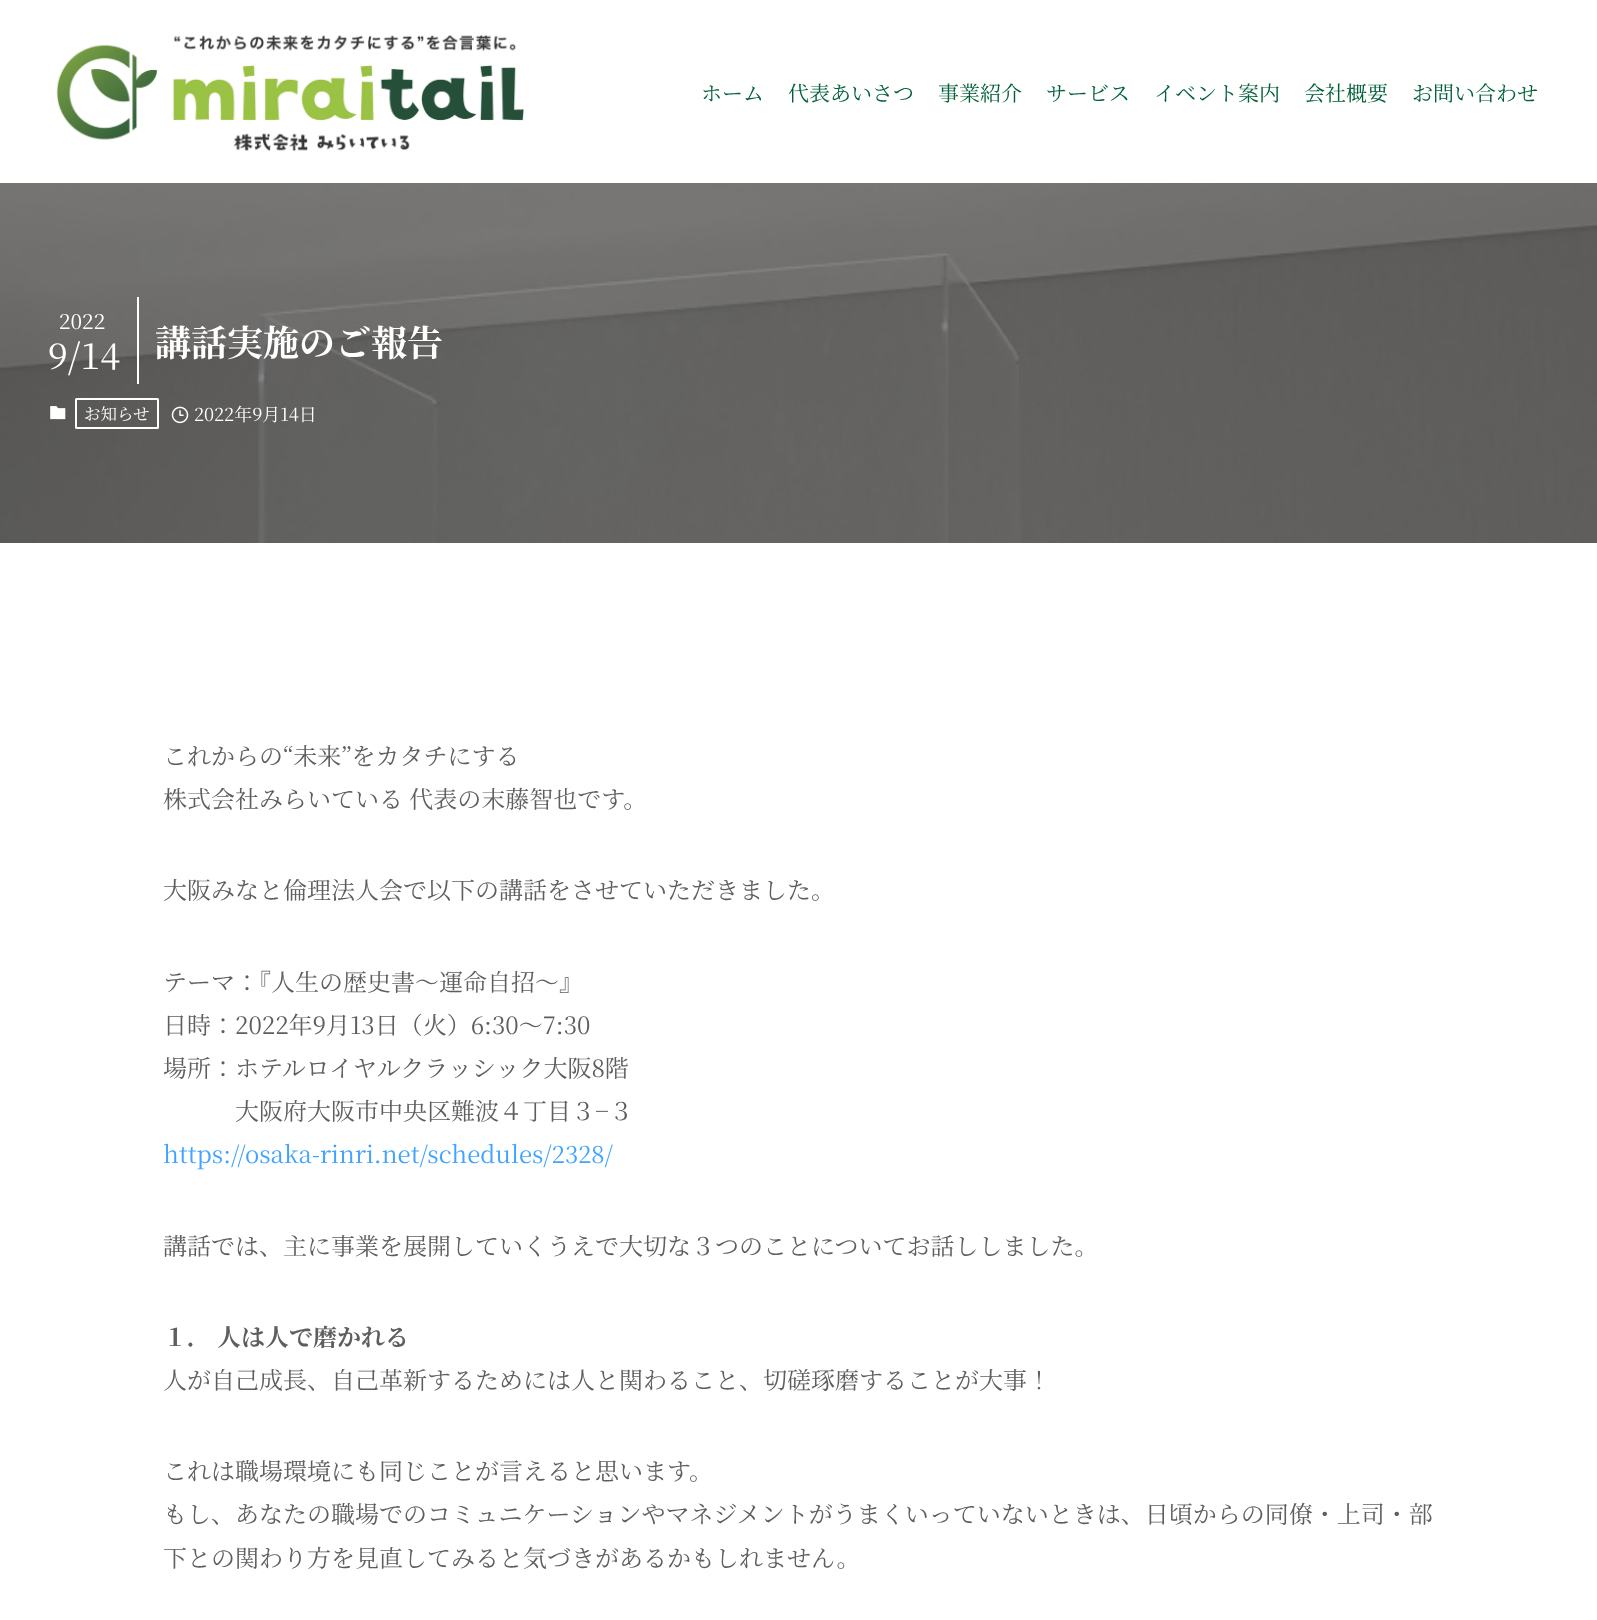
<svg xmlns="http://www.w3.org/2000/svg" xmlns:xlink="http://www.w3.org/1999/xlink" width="1597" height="1620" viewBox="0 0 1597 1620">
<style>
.cls-1{font:21px Noto Serif JP;fill:#006036}
.cls-2{font:21px Noto Serif JP;fill:#ffffff}
.cls-3{font:36px Noto Serif JP;fill:#ffffff}
.cls-4{font:bold 36px Noto Serif JP;fill:#ffffff}
.cls-5{font:16.5px Noto Serif JP;fill:#ffffff}
.cls-6{font:18px Noto Serif JP;fill:#ffffff}
.cls-7{font:24px Noto Serif JP;fill:#5e5e5e}
.cls-8{font:24px Noto Serif JP;fill:#3fa3ff}
.cls-9{font:bold 24px Noto Serif JP;fill:#5e5e5e}
</style>
<rect width="100%" height="100%" fill="#ffffff"/>
<image xlink:href="image0.png" x="56" y="34" width="468" height="118"/>
<image xlink:href="image1.png" x="0" y="183" width="1597" height="360"/>
<rect fill="#ffffff" x="137" y="297" width="2" height="87"/>
<image xlink:href="image2.png" x="50" y="406" width="16" height="14"/>
<rect fill="none" stroke="#ffffff" stroke-width="2" x="76" y="399" width="82" height="29" rx="0.5"/>
<image xlink:href="image3.png" x="171" y="406" width="18" height="18"/>
<text class="cls-1" x="701" y="101">ホーム</text>
<text class="cls-1" x="788" y="101">代表あいさつ</text>
<text class="cls-1" x="938" y="101">事業紹介</text>
<text class="cls-1" x="1046" y="101">サービス</text>
<text class="cls-1" x="1154" y="101">イベント案内</text>
<text class="cls-1" x="1304" y="101">会社概要</text>
<text class="cls-1" x="1412" y="101">お問い合わせ</text>
<text class="cls-2" x="59" y="329">2022</text>
<text class="cls-3" x="48" y="369">9/14</text>
<text class="cls-4" x="155" y="356">講話実施のご報告</text>
<text class="cls-5" x="84" y="420">お知らせ</text>
<text class="cls-6" x="194" y="421">2022年9月14日</text>
<text class="cls-7"><tspan x="163" y="765">これからの“未来”をカタチにする</tspan><tspan x="163" y="808">株式会社みらいている 代表の末藤智也です。</tspan></text>
<text class="cls-7" x="163" y="899">大阪みなと倫理法人会で以下の講話をさせていただきました。</text>
<text class="cls-7"><tspan x="163" y="991">テーマ：『人生の歴史書〜運命自招〜』</tspan><tspan x="163" y="1034">日時：2022年9月13日（火）6:30〜7:30</tspan><tspan x="163" y="1077">場所：ホテルロイヤルクラッシック大阪8階</tspan></text>
<text class="cls-7" x="235" y="1120">大阪府大阪市中央区難波４丁目３−３</text>
<text class="cls-8" x="163" y="1163">https://osaka-rinri.net/schedules/2328/</text>
<text class="cls-7" x="163" y="1255">講話では、主に事業を展開していくうえで大切な３つのことについてお話ししました。</text>
<text class="cls-9" x="163" y="1346">１． 人は人で磨かれる</text>
<text class="cls-7" x="163" y="1389">人が自己成長、自己革新するためには人と関わること、切磋琢磨することが大事！</text>
<text class="cls-7"><tspan x="163" y="1480">これは職場環境にも同じことが言えると思います。</tspan><tspan x="163" y="1523">もし、あなたの職場でのコミュニケーションやマネジメントがうまくいっていないときは、日頃からの同僚・上司・部</tspan><tspan x="163" y="1567">下との関わり方を見直してみると気づきがあるかもしれません。</tspan></text>
</svg>
